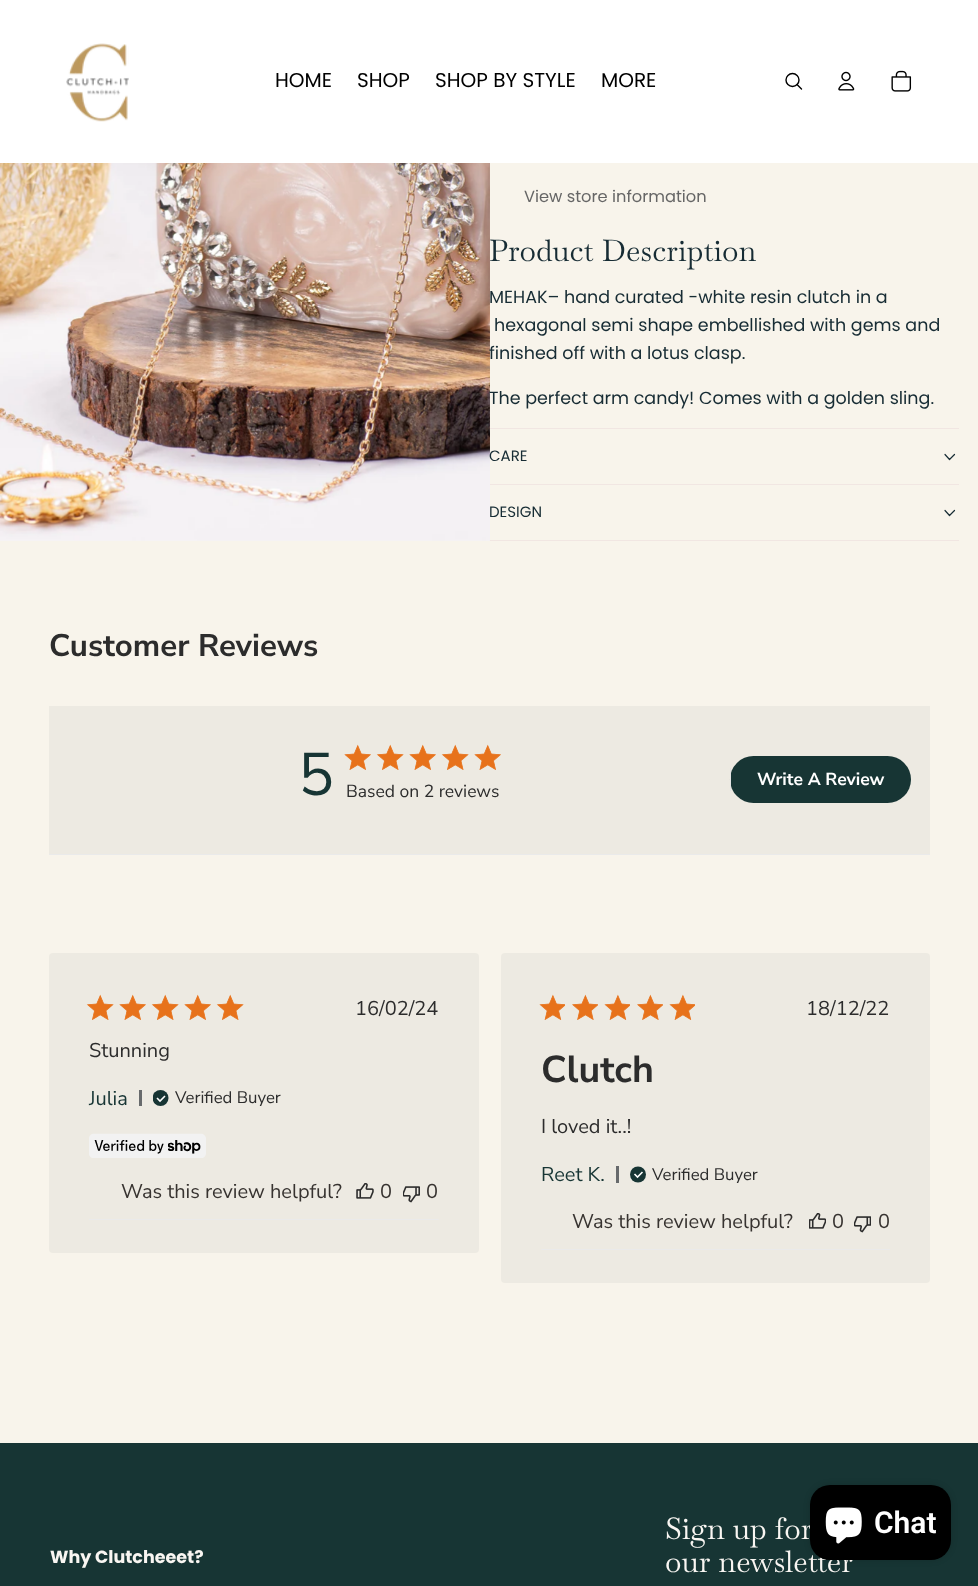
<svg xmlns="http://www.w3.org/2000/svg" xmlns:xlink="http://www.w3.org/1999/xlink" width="978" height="1586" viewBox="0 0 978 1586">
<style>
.cls-1{font:20px Poppins;fill:#000000}
.cls-2{font:16.25px Poppins;fill:#666666}
.cls-3{font:30px Baskervville;fill:#172c34}
.cls-4{font:17.5px Poppins;fill:#172c34}
.cls-5{font:15px Poppins;fill:#172c34}
.cls-6{font:200 31.25px Nunito Sans;fill:#2c2c2c}
.cls-7{font:200 60px 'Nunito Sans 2';fill:#173534}
.cls-8{font:200 17.5px 'Nunito Sans 2';fill:#2c2c2c}
.cls-9{font:200 17.5px Nunito Sans;fill:#ffffff}
.cls-10{font:200 20px 'Nunito Sans 2';fill:#2c2c2c}
.cls-11{font:200 20px 'Nunito Sans 2';fill:#173534}
.cls-12{font:200 16.75px 'Nunito Sans 2';fill:#2c2c2c}
.cls-13{font:200 20px 'Nunito Sans 2';fill:#373330}
.cls-14{font:200 37.5px Nunito Sans;fill:#2c2c2c}
.cls-15{font:bold 17.5px Poppins;fill:#f9f6f2}
.cls-16{font:30px Baskervville;fill:#f9f6f2}
.cls-17{font:600 30px Roboto;fill:#ffffff}
</style>
<defs>
<clipPath id="clip1"><rect x="153" y="1090" width="16" height="16"/></clipPath>
</defs>
<rect width="100%" height="100%" fill="#f8f4eb"/>
<rect fill="#ffffff" x="0" y="0" width="978" height="163"/>
<image xlink:href="image0.png" x="66" y="43" width="63" height="79"/>
<circle fill="none" stroke="#000000" stroke-width="1.4" cx="792.5" cy="80" r="6.5"/>
<path fill="none" stroke="#000000" stroke-width="1.4" stroke-linecap="round" stroke-linejoin="round" d="M797 84.5L801.5 89"/>
<image xlink:href="image1.png" x="838" y="71" width="17" height="20"/>
<image xlink:href="image2.png" x="891" y="70" width="21" height="22"/>
<image xlink:href="image3.png" x="0" y="163" width="490" height="378"/>
<rect fill="#f1e6e2" x="490" y="428" width="469" height="1"/>
<path fill="none" stroke="#172c34" stroke-width="1.2" stroke-linecap="round" stroke-linejoin="round" d="M954.5 454.5L949.5 459.5L945 454.5"/>
<rect fill="#f1e6e2" x="490" y="484" width="469" height="1"/>
<rect fill="#f1e6e2" x="490" y="540" width="469" height="1"/>
<path fill="none" stroke="#172c34" stroke-width="1.2" stroke-linecap="round" stroke-linejoin="round" d="M954.5 510.5L949.5 515.5L945 510.5"/>
<rect fill="#edeae2" x="49" y="706" width="881" height="148"/>
<image xlink:href="image4.png" x="344" y="744" width="27" height="26"/>
<image xlink:href="image5.png" x="376" y="744" width="28" height="26"/>
<image xlink:href="image4.png" x="409" y="744" width="27" height="26"/>
<image xlink:href="image5.png" x="441" y="744" width="28" height="26"/>
<image xlink:href="image4.png" x="474" y="744" width="27" height="26"/>
<rect fill="#173534" x="730" y="756" width="181" height="47" rx="23.5"/>
<rect fill="#e3e3e3" x="730" y="768" width="1" height="23"/>
<rect fill="#eaeaea" x="49" y="854" width="881" height="1"/>
<rect fill="#edeae2" x="49" y="953" width="430" height="300" rx="4"/>
<image xlink:href="image6.png" x="86" y="994" width="28" height="26"/>
<image xlink:href="image7.png" x="119" y="994" width="27" height="26"/>
<image xlink:href="image6.png" x="151" y="994" width="28" height="26"/>
<image xlink:href="image7.png" x="184" y="994" width="27" height="26"/>
<image xlink:href="image6.png" x="216" y="994" width="28" height="26"/>
<rect fill="#676a6c" x="139" y="1090" width="3" height="16"/>
<g clip-path="url(#clip1)">
<circle fill="#173534" cx="160.5" cy="1098" r="8"/>
</g>
<path fill="none" stroke="#ffffff" stroke-width="1.6" d="M157 1098L160 1101L165 1096"/>
<image xlink:href="image8.png" x="89" y="1133" width="117" height="25"/>
<image xlink:href="image9.png" x="356" y="1183" width="18" height="16"/>
<image xlink:href="image10.png" x="403" y="1186" width="17" height="17"/>
<image xlink:href="image11.png" x="89" y="1219" width="350" height="1"/>
<rect fill="#edeae2" x="501" y="953" width="429" height="330" rx="4"/>
<image xlink:href="image12.png" x="539" y="994" width="26" height="26"/>
<image xlink:href="image13.png" x="572" y="994" width="26" height="26"/>
<image xlink:href="image12.png" x="604" y="994" width="26" height="26"/>
<image xlink:href="image13.png" x="637" y="994" width="26" height="26"/>
<image xlink:href="image12.png" x="669" y="994" width="26" height="26"/>
<rect fill="#676a6c" x="616" y="1166" width="3" height="17"/>
<circle fill="#173534" cx="638" cy="1174.5" r="8"/>
<path fill="none" stroke="#ffffff" stroke-width="1.6" d="M634.5 1174L637.5 1177L642.5 1172"/>
<image xlink:href="image14.png" x="809" y="1213" width="17" height="16"/>
<image xlink:href="image15.png" x="854" y="1216" width="17" height="17"/>
<image xlink:href="image16.png" x="541" y="1249" width="349" height="1"/>
<rect fill="#173534" x="0" y="1443" width="978" height="143"/>
<rect fill="#000000" fill-opacity="0.15" filter="blur(3px)" x="810" y="1485" width="141" height="75" rx="20"/>
<text class="cls-1" x="275" y="87">HOME</text>
<text class="cls-1" x="357" y="87">SHOP</text>
<text class="cls-1" x="435" y="87">SHOP BY STYLE</text>
<text class="cls-1" x="601" y="87">MORE</text>
<text class="cls-2" x="524" y="202">View store information</text>
<text class="cls-3" x="489" y="261">Product Description</text>
<text class="cls-4" x="489" y="303">MEHAK– hand curated -white resin clutch in a</text>
<text class="cls-4" x="494" y="331">hexagonal semi shape embellished with gems and</text>
<text class="cls-4" x="489" y="359">finished off with a lotus clasp.</text>
<text class="cls-4" x="489" y="404">The perfect arm candy! Comes with a golden sling.</text>
<text class="cls-5" x="489" y="461">CARE</text>
<text class="cls-5" x="489" y="517">DESIGN</text>
<text class="cls-6" x="49" y="656">Customer Reviews</text>
<text class="cls-7" x="298" y="795">5</text>
<text class="cls-8" x="346" y="797">Based on 2 reviews</text>
<text class="cls-9" x="757" y="785">Write A Review</text>
<text class="cls-10" x="355" y="1015">16/02/24</text>
<text class="cls-10" x="89" y="1057">Stunning</text>
<text class="cls-11" x="89" y="1105">Julia</text>
<text class="cls-12" x="175" y="1103">Verified Buyer</text>
<text class="cls-13" x="121" y="1198">Was this review helpful?</text>
<text class="cls-13" x="380" y="1198">0</text>
<text class="cls-13" x="426" y="1198">0</text>
<text class="cls-10" x="806" y="1015">18/12/22</text>
<text class="cls-14" x="541" y="1082">Clutch</text>
<text class="cls-10" x="541" y="1133">I loved it..!</text>
<text class="cls-11" x="541" y="1181">Reet K.</text>
<text class="cls-12" x="652" y="1180">Verified Buyer</text>
<text class="cls-13" x="572" y="1228">Was this review helpful?</text>
<text class="cls-13" x="832" y="1228">0</text>
<text class="cls-13" x="878" y="1228">0</text>
<text class="cls-15" x="50" y="1563">Why Clutcheeet?</text>
<text class="cls-16"><tspan x="665" y="1539">Sign up for</tspan><tspan x="665" y="1572">our newsletter</tspan></text>
<rect fill="#000000" x="810" y="1485" width="141" height="75" rx="20"/>
<image xlink:href="image17.png" x="825" y="1507" width="37" height="37"/>
<text class="cls-17" x="874" y="1533">Chat</text>
</svg>
